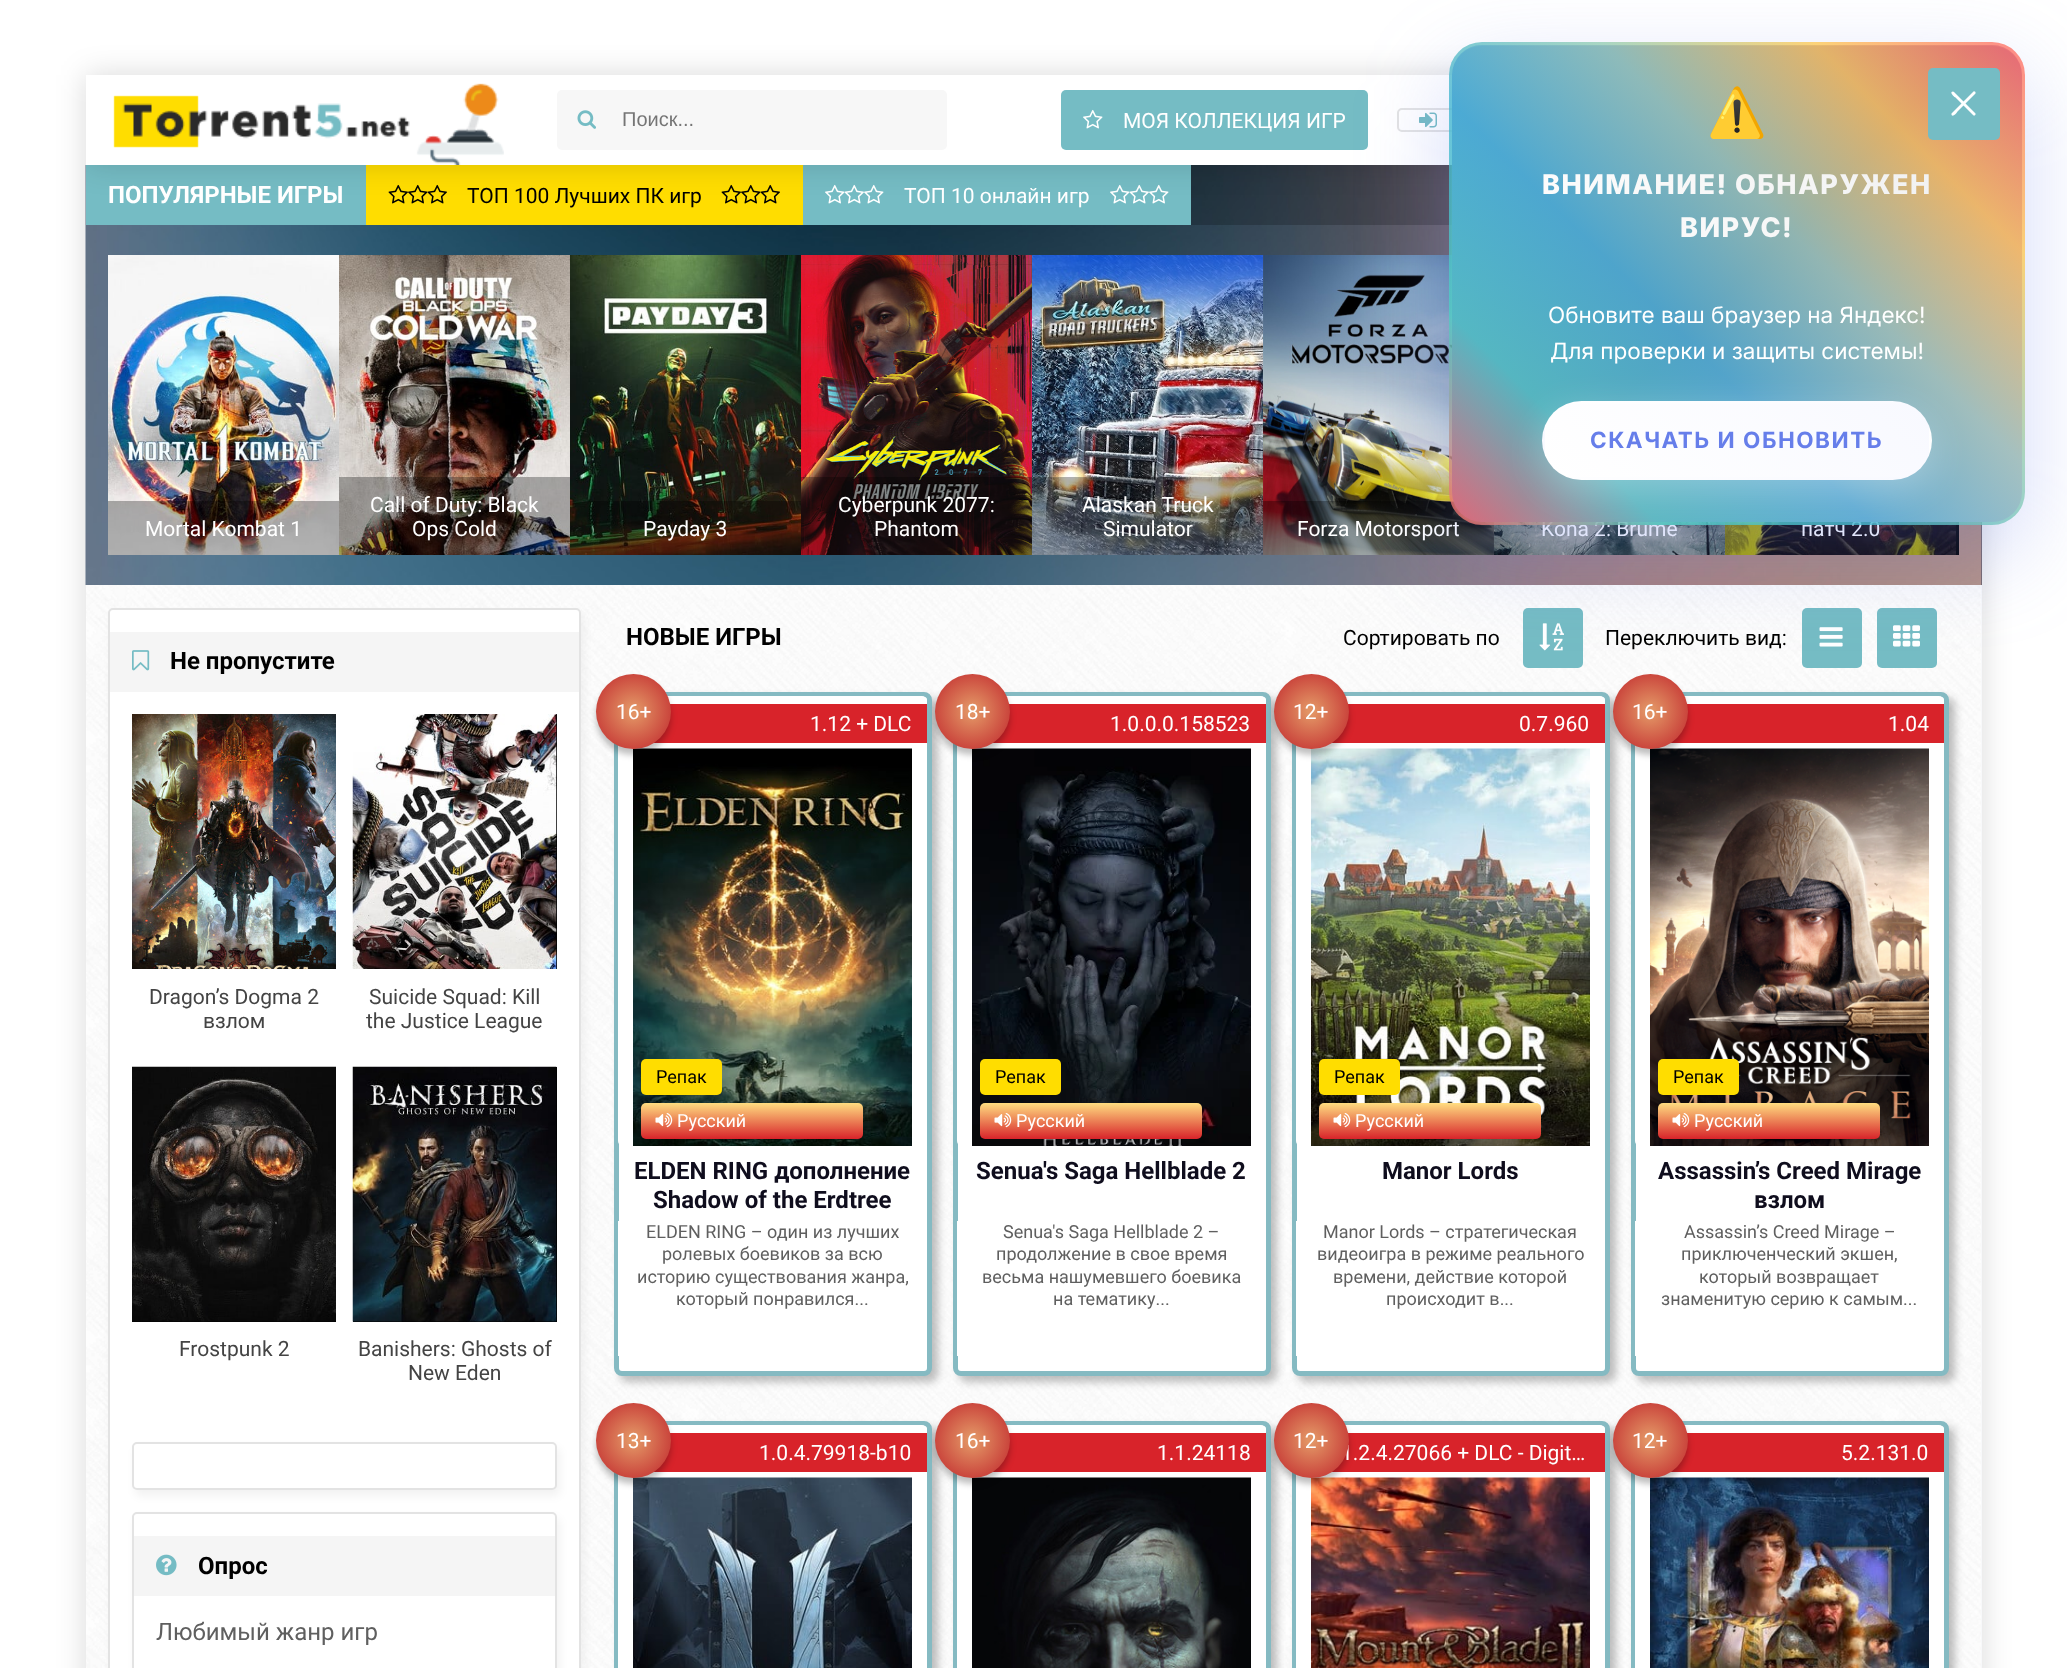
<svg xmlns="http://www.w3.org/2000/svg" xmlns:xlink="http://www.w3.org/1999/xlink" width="2067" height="1668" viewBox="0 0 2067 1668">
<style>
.cls-1{font:20px Liberation Sans;fill:#757575}
.cls-2{font:21px Roboto;fill:#ffffff}
.cls-3{font:bold 24px Roboto;fill:#ffffff}
.cls-4{font:21px Roboto;fill:#000000}
.cls-5{font:bold 22.5px Inter;letter-spacing:1.5px;fill:#667eea}
.cls-6{font:22.5px Inter;fill:#ffffff}
.cls-7{font:800 27px Inter;letter-spacing:1.5px;fill:url(#g19)}
.cls-8{font:48px Noto Color Emoji;fill:#ffffff}
.cls-9{font:bold 24px Roboto;fill:#000000}
.cls-10{font:21px Roboto;fill:#444444}
.cls-11{font:24px Roboto;fill:#5f5f5f}
.cls-12{font:18px Roboto;fill:#000000}
.cls-13{font:18px Roboto;fill:#ffffff}
.cls-14{font:bold 24px Roboto;fill:#0f0d1d}
.cls-15{font:18px Roboto;fill:#5f5f5f}
</style>
<defs>
<radialGradient id="g1" gradientUnits="userSpaceOnUse" cx="633" cy="711" r="38"><stop offset="0.1" stop-color="#e29364"/><stop offset="1" stop-color="#ca453c"/></radialGradient>
<linearGradient id="g2" gradientUnits="userSpaceOnUse" x1="752" y1="1103" x2="752" y2="1139"><stop offset="0" stop-color="#ffdd80"/><stop offset="1" stop-color="#d8232a"/></linearGradient>
<radialGradient id="g3" gradientUnits="userSpaceOnUse" cx="972" cy="711" r="38"><stop offset="0.1" stop-color="#e29364"/><stop offset="1" stop-color="#ca453c"/></radialGradient>
<linearGradient id="g4" gradientUnits="userSpaceOnUse" x1="1091" y1="1103" x2="1091" y2="1139"><stop offset="0" stop-color="#ffdd80"/><stop offset="1" stop-color="#d8232a"/></linearGradient>
<radialGradient id="g5" gradientUnits="userSpaceOnUse" cx="1311" cy="711" r="38"><stop offset="0.1" stop-color="#e29364"/><stop offset="1" stop-color="#ca453c"/></radialGradient>
<linearGradient id="g6" gradientUnits="userSpaceOnUse" x1="1430" y1="1103" x2="1430" y2="1139"><stop offset="0" stop-color="#ffdd80"/><stop offset="1" stop-color="#d8232a"/></linearGradient>
<radialGradient id="g7" gradientUnits="userSpaceOnUse" cx="1650" cy="711" r="38"><stop offset="0.1" stop-color="#e29364"/><stop offset="1" stop-color="#ca453c"/></radialGradient>
<linearGradient id="g8" gradientUnits="userSpaceOnUse" x1="1769" y1="1103" x2="1769" y2="1139"><stop offset="0" stop-color="#ffdd80"/><stop offset="1" stop-color="#d8232a"/></linearGradient>
<radialGradient id="g9" gradientUnits="userSpaceOnUse" cx="633" cy="1440" r="38"><stop offset="0.1" stop-color="#e29364"/><stop offset="1" stop-color="#ca453c"/></radialGradient>
<radialGradient id="g10" gradientUnits="userSpaceOnUse" cx="972" cy="1440" r="38"><stop offset="0.1" stop-color="#e29364"/><stop offset="1" stop-color="#ca453c"/></radialGradient>
<radialGradient id="g11" gradientUnits="userSpaceOnUse" cx="1650" cy="1440" r="38"><stop offset="0.1" stop-color="#e29364"/><stop offset="1" stop-color="#ca453c"/></radialGradient>
<linearGradient id="g12" gradientUnits="userSpaceOnUse" x1="1475" y1="22" x2="1999" y2="545"><stop offset="0" stop-color="#667eea"/><stop offset="0.5" stop-color="#764ba2"/><stop offset="1" stop-color="#f093fb"/></linearGradient>
<linearGradient id="g13" gradientUnits="userSpaceOnUse" x1="1472" y1="548" x2="2002" y2="19"><stop offset="0" stop-color="#ff6b6b" stop-opacity="0.8"/><stop offset="0.2" stop-color="#4ecdc4" stop-opacity="0.8"/><stop offset="0.4" stop-color="#45b7d1" stop-opacity="0.8"/><stop offset="0.6" stop-color="#96ceb4" stop-opacity="0.8"/><stop offset="0.8" stop-color="#feca57" stop-opacity="0.8"/><stop offset="1" stop-color="#ff6b6b" stop-opacity="0.8"/></linearGradient>
<clipPath id="clip1"><rect x="1542" y="401" width="390" height="79" rx="39.5"/></clipPath>
<linearGradient id="g14" gradientUnits="userSpaceOnUse" x1="1623" y1="555" x2="1851" y2="326"><stop offset="0" stop-color="#ffffff"/><stop offset="1" stop-color="#f8f9ff"/></linearGradient>
<linearGradient id="g15" gradientUnits="userSpaceOnUse" x1="1623" y1="628" x2="1851" y2="399"><stop offset="0" stop-color="#ffffff"/><stop offset="1" stop-color="#f8f9ff"/></linearGradient>
<linearGradient id="g16" gradientUnits="userSpaceOnUse" x1="2007" y1="555" x2="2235" y2="326"><stop offset="0" stop-color="#ffffff"/><stop offset="1" stop-color="#f8f9ff"/></linearGradient>
<linearGradient id="g17" gradientUnits="userSpaceOnUse" x1="1239" y1="555" x2="1467" y2="326"><stop offset="0" stop-color="#ffffff"/><stop offset="1" stop-color="#f8f9ff"/></linearGradient>
<linearGradient id="g18" gradientUnits="userSpaceOnUse" x1="1623" y1="481" x2="1851" y2="252"><stop offset="0" stop-color="#ffffff"/><stop offset="1" stop-color="#f8f9ff"/></linearGradient>
<linearGradient id="g19" gradientUnits="userSpaceOnUse" x1="1592" y1="352" x2="1882" y2="61"><stop offset="0" stop-color="#ffffff"/><stop offset="1" stop-color="#f0f0f0"/></linearGradient>
<radialGradient id="g20" gradientUnits="userSpaceOnUse" cx="1311" cy="1440" r="38"><stop offset="0.1" stop-color="#e29364"/><stop offset="1" stop-color="#ca453c"/></radialGradient>
</defs>
<rect width="100%" height="100%" fill="#ffffff"/>
<rect fill="#000000" fill-opacity="0.15" filter="blur(15px)" x="86" y="165" width="1896" height="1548"/>
<rect fill="#3b4054" x="1981" y="522" width="1" height="63"/>
<image xlink:href="image5.png" x="85" y="165" width="1897" height="420"/>
<rect fill="#000000" fill-opacity="0.2" x="1191" y="165" width="261" height="60"/>
<rect fill="#75bcc4" x="86" y="165" width="280" height="60"/>
<rect fill="#ffdd00" x="366" y="165" width="437" height="60"/>
<image xlink:href="image6.png" x="388" y="184" width="20" height="20"/>
<image xlink:href="image7.png" x="408" y="184" width="20" height="20"/>
<image xlink:href="image8.png" x="427" y="184" width="20" height="20"/>
<image xlink:href="image6.png" x="721" y="184" width="20" height="20"/>
<image xlink:href="image7.png" x="741" y="184" width="20" height="20"/>
<image xlink:href="image8.png" x="760" y="184" width="20" height="20"/>
<rect fill="#75bcc4" x="803" y="165" width="388" height="60"/>
<image xlink:href="image2.png" x="825" y="184" width="20" height="20"/>
<image xlink:href="image9.png" x="844" y="184" width="20" height="20"/>
<image xlink:href="image2.png" x="864" y="184" width="20" height="20"/>
<image xlink:href="image2.png" x="1110" y="184" width="20" height="20"/>
<image xlink:href="image9.png" x="1129" y="184" width="20" height="20"/>
<image xlink:href="image2.png" x="1149" y="184" width="20" height="20"/>
<rect fill="#000000" fill-opacity="0.15" filter="blur(15px)" x="86" y="75" width="1896" height="90"/>
<rect fill="#ffffff" x="86" y="75" width="1366" height="90"/>
<image xlink:href="image0.png" x="113" y="83" width="391" height="82"/>
<rect fill="#f7f7f7" x="557" y="90" width="390" height="60" rx="5"/>
<image xlink:href="image1.png" x="577" y="110" width="19" height="19"/>
<rect fill="#75bcc4" x="1061" y="90" width="307" height="60" rx="5"/>
<image xlink:href="image2.png" x="1083" y="109" width="20" height="20"/>
<rect fill="none" stroke="#e3e3e3" stroke-width="2" x="1398" y="109" width="218" height="22" rx="4"/>
<image xlink:href="image3.png" x="1419" y="112" width="18" height="16"/>
<rect fill="#f7f8fa" x="1981" y="585" width="1" height="1083"/>
<image xlink:href="image4.png" x="86" y="585" width="1895" height="1083"/>
<image xlink:href="image10.png" x="108" y="255" width="231" height="300"/>
<rect fill="#000000" fill-opacity="0.3" x="108" y="501" width="231" height="54"/>
<image xlink:href="image11.png" x="339" y="255" width="231" height="300"/>
<rect fill="#000000" fill-opacity="0.3" x="339" y="477" width="231" height="78"/>
<image xlink:href="image12.png" x="570" y="255" width="231" height="300"/>
<rect fill="#000000" fill-opacity="0.3" x="570" y="501" width="231" height="54"/>
<image xlink:href="image13.png" x="801" y="255" width="231" height="300"/>
<rect fill="#000000" fill-opacity="0.3" x="801" y="477" width="231" height="78"/>
<image xlink:href="image14.png" x="1032" y="255" width="231" height="300"/>
<rect fill="#000000" fill-opacity="0.3" x="1032" y="477" width="231" height="78"/>
<image xlink:href="image15.png" x="1263" y="255" width="231" height="300"/>
<rect fill="#000000" fill-opacity="0.3" x="1263" y="501" width="231" height="54"/>
<image xlink:href="image16.png" x="1494" y="522" width="231" height="33"/>
<rect fill="#000000" fill-opacity="0.3" x="1494" y="522" width="231" height="33"/>
<image xlink:href="image17.png" x="1725" y="522" width="231" height="33"/>
<rect fill="#000000" fill-opacity="0.3" x="1725" y="522" width="231" height="33"/>
<rect fill="#000000" x="1956" y="522" width="3" height="33"/>
<rect fill="#000000" fill-opacity="0.05" filter="blur(4px)" x="111" y="614" width="473" height="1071" rx="5"/>
<rect fill="#ffffff" stroke="#e3e3e3" stroke-width="2" x="109" y="609" width="471" height="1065" rx="4"/>
<rect fill="#f5f5f5" x="110" y="632" width="469" height="60"/>
<image xlink:href="image18.png" x="132" y="650" width="18" height="21"/>
<image xlink:href="image19.png" x="132" y="714" width="204" height="255"/>
<rect fill="#000000" x="556" y="714" width="1" height="255"/>
<image xlink:href="image20.png" x="352" y="714" width="205" height="255"/>
<rect fill="#000000" x="132" y="1321" width="204" height="1"/>
<image xlink:href="image21.png" x="132" y="1066" width="204" height="256"/>
<rect fill="#000000" x="353" y="1067" width="204" height="255"/>
<image xlink:href="image22.png" x="352" y="1066" width="205" height="256"/>
<rect fill="#000000" fill-opacity="0.05" filter="blur(4px)" x="135" y="1448" width="425" height="48" rx="5"/>
<rect fill="#ffffff" stroke="#e3e3e3" stroke-width="2" x="133" y="1443" width="423" height="46" rx="4"/>
<rect fill="#000000" fill-opacity="0.05" filter="blur(4px)" x="135" y="1518" width="425" height="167" rx="5"/>
<rect fill="#ffffff" stroke="#e3e3e3" stroke-width="2" x="133" y="1513" width="423" height="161" rx="4"/>
<rect fill="#f5f5f5" x="134" y="1536" width="421" height="60"/>
<image xlink:href="image23.png" x="156" y="1554" width="21" height="22"/>
<rect fill="#75bcc4" x="1523" y="608" width="60" height="60" rx="5"/>
<image xlink:href="image24.png" x="1539" y="623" width="25" height="28"/>
<rect fill="#75bcc4" x="1802" y="608" width="60" height="60" rx="5"/>
<image xlink:href="image25.png" x="1819" y="627" width="24" height="20"/>
<rect fill="#75bcc4" x="1877" y="608" width="60" height="60" rx="5"/>
<image xlink:href="image26.png" x="1893" y="625" width="27" height="22"/>
<rect fill="#000000" fill-opacity="0.25" filter="blur(4.5px)" x="620" y="698" width="318" height="684" rx="8"/>
<rect fill="#ffffff" stroke="#85bac2" stroke-width="5" x="616.5" y="694.5" width="313" height="679" rx="5.5"/>
<rect fill="#ffffff" x="618" y="696" width="309" height="450" rx="5"/>
<rect fill="#d8232a" x="653" y="704" width="274" height="39"/>
<image xlink:href="image27.png" x="633" y="748" width="279" height="398"/>
<rect fill="#000000" fill-opacity="0.25" filter="blur(3px)" x="596" y="680" width="75" height="75" rx="37.5"/>
<circle fill="url(#g1)" cx="633.5" cy="711.5" r="37.5"/>
<rect fill="#ffdd00" x="641" y="1059" width="81" height="36" rx="5"/>
<rect fill="url(#g2)" x="641" y="1103" width="222" height="36" rx="5"/>
<image xlink:href="image28.png" x="655" y="1113" width="18" height="15"/>
<rect fill="#ffffff" x="618" y="1221" width="1" height="135"/>
<rect fill="#000000" fill-opacity="0.25" filter="blur(4.5px)" x="959" y="698" width="318" height="684" rx="8"/>
<rect fill="#ffffff" stroke="#85bac2" stroke-width="5" x="955.5" y="694.5" width="313" height="679" rx="5.5"/>
<rect fill="#ffffff" x="957" y="696" width="309" height="450" rx="5"/>
<rect fill="#d8232a" x="992" y="704" width="274" height="39"/>
<image xlink:href="image29.png" x="972" y="748" width="279" height="398"/>
<rect fill="#000000" fill-opacity="0.25" filter="blur(3px)" x="935" y="680" width="75" height="75" rx="37.5"/>
<circle fill="url(#g3)" cx="972.5" cy="711.5" r="37.5"/>
<rect fill="#ffdd00" x="980" y="1059" width="81" height="36" rx="5"/>
<rect fill="url(#g4)" x="980" y="1103" width="222" height="36" rx="5"/>
<image xlink:href="image28.png" x="994" y="1113" width="18" height="15"/>
<rect fill="#ffffff" x="957" y="1221" width="1" height="135"/>
<rect fill="#000000" fill-opacity="0.25" filter="blur(4.5px)" x="1298" y="698" width="318" height="684" rx="8"/>
<rect fill="#ffffff" stroke="#85bac2" stroke-width="5" x="1294.5" y="694.5" width="313" height="679" rx="5.5"/>
<rect fill="#ffffff" x="1296" y="696" width="309" height="450" rx="5"/>
<rect fill="#d8232a" x="1331" y="704" width="274" height="39"/>
<image xlink:href="image30.png" x="1311" y="748" width="279" height="398"/>
<rect fill="#000000" fill-opacity="0.25" filter="blur(3px)" x="1274" y="680" width="75" height="75" rx="37.5"/>
<circle fill="url(#g5)" cx="1311.5" cy="711.5" r="37.5"/>
<rect fill="#ffdd00" x="1319" y="1059" width="81" height="36" rx="5"/>
<rect fill="url(#g6)" x="1319" y="1103" width="222" height="36" rx="5"/>
<image xlink:href="image28.png" x="1333" y="1113" width="18" height="15"/>
<rect fill="#ffffff" x="1296" y="1221" width="1" height="135"/>
<rect fill="#000000" fill-opacity="0.25" filter="blur(4.5px)" x="1637" y="698" width="318" height="684" rx="8"/>
<rect fill="#ffffff" stroke="#85bac2" stroke-width="5" x="1633.5" y="694.5" width="313" height="679" rx="5.5"/>
<rect fill="#ffffff" x="1635" y="696" width="309" height="450" rx="5"/>
<rect fill="#d8232a" x="1670" y="704" width="274" height="39"/>
<image xlink:href="image31.png" x="1650" y="748" width="279" height="398"/>
<rect fill="#000000" fill-opacity="0.25" filter="blur(3px)" x="1613" y="680" width="75" height="75" rx="37.5"/>
<circle fill="url(#g7)" cx="1650.5" cy="711.5" r="37.5"/>
<rect fill="#ffdd00" x="1658" y="1059" width="81" height="36" rx="5"/>
<rect fill="url(#g8)" x="1658" y="1103" width="222" height="36" rx="5"/>
<image xlink:href="image28.png" x="1672" y="1113" width="18" height="15"/>
<rect fill="#ffffff" x="1635" y="1221" width="1" height="135"/>
<rect fill="#000000" fill-opacity="0.25" filter="blur(4.5px)" x="620" y="1427" width="318" height="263" rx="8"/>
<rect fill="#ffffff" stroke="#85bac2" stroke-width="5" x="616.5" y="1423.5" width="313" height="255" rx="5.5"/>
<rect fill="#ffffff" x="618" y="1425" width="309" height="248" rx="5"/>
<rect fill="#d8232a" x="653" y="1433" width="274" height="39"/>
<image xlink:href="image32.png" x="633" y="1477" width="279" height="191"/>
<rect fill="#000000" fill-opacity="0.25" filter="blur(3px)" x="596" y="1409" width="75" height="75" rx="37.5"/>
<circle fill="url(#g9)" cx="633.5" cy="1440.5" r="37.5"/>
<rect fill="#000000" fill-opacity="0.25" filter="blur(4.5px)" x="959" y="1427" width="318" height="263" rx="8"/>
<rect fill="#ffffff" stroke="#85bac2" stroke-width="5" x="955.5" y="1423.5" width="313" height="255" rx="5.5"/>
<rect fill="#ffffff" x="957" y="1425" width="309" height="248" rx="5"/>
<rect fill="#d8232a" x="992" y="1433" width="274" height="39"/>
<image xlink:href="image33.png" x="972" y="1477" width="279" height="191"/>
<rect fill="#000000" fill-opacity="0.25" filter="blur(3px)" x="935" y="1409" width="75" height="75" rx="37.5"/>
<circle fill="url(#g10)" cx="972.5" cy="1440.5" r="37.5"/>
<rect fill="#000000" fill-opacity="0.25" filter="blur(4.5px)" x="1298" y="1427" width="318" height="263" rx="8"/>
<rect fill="#ffffff" stroke="#85bac2" stroke-width="5" x="1294.5" y="1423.5" width="313" height="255" rx="5.5"/>
<rect fill="#ffffff" x="1296" y="1425" width="309" height="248" rx="5"/>
<rect fill="#d8232a" x="1331" y="1433" width="274" height="39"/>
<image xlink:href="image34.png" x="1311" y="1477" width="279" height="191"/>
<rect fill="#000000" fill-opacity="0.25" filter="blur(3px)" x="1274" y="1409" width="75" height="75" rx="37.5"/>
<rect fill="#000000" fill-opacity="0.25" filter="blur(4.5px)" x="1637" y="1427" width="318" height="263" rx="8"/>
<rect fill="#ffffff" stroke="#85bac2" stroke-width="5" x="1633.5" y="1423.5" width="313" height="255" rx="5.5"/>
<rect fill="#ffffff" x="1635" y="1425" width="309" height="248" rx="5"/>
<rect fill="#d8232a" x="1670" y="1433" width="274" height="39"/>
<image xlink:href="image35.png" x="1650" y="1477" width="279" height="191"/>
<rect fill="#000000" fill-opacity="0.25" filter="blur(3px)" x="1613" y="1409" width="75" height="75" rx="37.5"/>
<circle fill="url(#g11)" cx="1650.5" cy="1440.5" r="37.5"/>
<text class="cls-1" x="622" y="126">Поиск...</text>
<text class="cls-2" x="1123" y="128">МОЯ КОЛЛЕКЦИЯ ИГР</text>
<text class="cls-3" x="108" y="203">ПОПУЛЯРНЫЕ ИГРЫ</text>
<text class="cls-4" x="467" y="203">ТОП 100 Лучших ПК игр</text>
<text class="cls-2" x="904" y="203">ТОП 10 онлайн игр</text>
<text class="cls-2" x="145" y="536">Mortal Kombat 1</text>
<text class="cls-2" x="370" y="512">Call of Duty: Black</text>
<text class="cls-2" x="412" y="536">Ops Cold</text>
<text class="cls-2" x="643" y="536">Payday 3</text>
<text class="cls-2" x="838" y="512">Cyberpunk 2077:</text>
<text class="cls-2" x="874" y="536">Phantom</text>
<text class="cls-2" x="1082" y="512">Alaskan Truck</text>
<text class="cls-2" x="1103" y="536">Simulator</text>
<text class="cls-2" x="1297" y="536">Forza Motorsport</text>
<text class="cls-2" x="1541" y="536">Kona 2: Brume</text>
<text class="cls-2" x="1801" y="536">патч 2.0</text>
<rect fill="none" stroke="#ffffff" stroke-opacity="0.1" stroke-width="2" x="1452" y="45" width="571" height="478" rx="31"/>
<rect fill="#667eea" fill-opacity="0.3" filter="blur(45px)" x="1452" y="75" width="570" height="477" rx="30"/>
<rect fill="url(#g12)" x="1452" y="45" width="570" height="477" rx="30"/>
<path fill="#ffffff" fill-opacity="0.2" d="M1482 46H1992C2009 46 2022 60 2022 76V75C2022 58 2009 45 1992 45H1482C1465 45 1452 58 1452 75V76C1452 60 1465 46 1482 46Z"/>
<rect fill="url(#g13)" x="1449" y="42" width="576" height="483" rx="33"/>
<rect fill="#ffffff" fill-opacity="0.3" filter="blur(19px)" x="1542" y="413" width="390" height="79" rx="39.5"/>
<g clip-path="url(#clip1)">
<rect fill="url(#g14)" x="1545" y="404" width="384" height="73"/>
</g>
<text class="cls-5" x="1590" y="448">СКАЧАТЬ И ОБНОВИТЬ</text>
<g clip-path="url(#clip1)">
<rect fill="url(#g15)" x="1566" y="477" width="342" height="3"/>
<rect fill="url(#g16)" x="1929" y="425" width="3" height="31"/>
<rect fill="url(#g17)" x="1542" y="425" width="3" height="31"/>
<rect fill="url(#g18)" x="1566" y="401" width="342" height="3"/>
</g>
<rect fill="#75bcc4" x="1928" y="68" width="72" height="72" rx="5"/>
<path fill="#ffffff" d="M1954 92L1975.5 113.5C1976 114.5 1975 116 1973.5 115.5L1955.5 97.5C1955 97.5 1950.5 94 1951.5 92C1952 91.5 1953.5 91 1954 92Z"/>
<path fill="#ffffff" d="M1952 113L1973.5 91.5C1974.5 91 1976 92 1975.5 93.5L1957.5 111.5C1957.5 112 1954 116.5 1952 115.5C1951.5 115 1951 113.5 1952 113Z"/>
<text class="cls-6" x="1550" y="359">Для проверки и защиты системы!</text>
<text class="cls-6" x="1548" y="323">Обновите ваш браузер на Яндекс!</text>
<text class="cls-7" x="1680" y="237">ВИРУС!</text>
<text class="cls-7" x="1542" y="194">ВНИМАНИЕ! ОБНАРУЖЕН</text>
<text class="cls-8" x="1707" y="129">⚠️</text>
<text class="cls-9" x="170" y="669">Не пропустите</text>
<text class="cls-10" x="149" y="1004">Dragon’s Dogma 2</text>
<text class="cls-10" x="203" y="1028">взлом</text>
<text class="cls-10" x="369" y="1004">Suicide Squad: Kill</text>
<text class="cls-10" x="366" y="1028">the Justice League</text>
<text class="cls-10" x="179" y="1356">Frostpunk 2</text>
<text class="cls-10" x="358" y="1356">Banishers: Ghosts of</text>
<text class="cls-10" x="408" y="1380">New Eden</text>
<text class="cls-9" x="198" y="1574">Опрос</text>
<text class="cls-11" x="156" y="1640">Любимый жанр игр</text>
<text class="cls-9" x="626" y="645">НОВЫЕ ИГРЫ</text>
<text class="cls-4" x="1343" y="645">Сортировать по</text>
<text class="cls-4" x="1605" y="645">Переключить вид:</text>
<text class="cls-2" x="616" y="719">16+</text>
<text class="cls-2" x="810" y="731">1.12 + DLC</text>
<text class="cls-12" x="656" y="1083">Репак</text>
<text class="cls-13" x="677" y="1127">Русский</text>
<text class="cls-14" x="634" y="1179">ELDEN RING дополнение</text>
<text class="cls-14" x="653" y="1208">Shadow of the Erdtree</text>
<text class="cls-15" x="646" y="1238">ELDEN RING – один из лучших</text>
<text class="cls-15" x="662" y="1260">ролевых боевиков за всю</text>
<text class="cls-15" x="637" y="1283">историю существования жанра,</text>
<text class="cls-15" x="676" y="1305">который понравился...</text>
<text class="cls-2" x="955" y="719">18+</text>
<text class="cls-2" x="1110" y="731">1.0.0.0.158523</text>
<text class="cls-12" x="995" y="1083">Репак</text>
<text class="cls-13" x="1016" y="1127">Русский</text>
<text class="cls-14" x="976" y="1179">Senua's Saga Hellblade 2</text>
<text class="cls-15" x="1003" y="1238">Senua's Saga Hellblade 2 –</text>
<text class="cls-15" x="996" y="1260">продолжение в свое время</text>
<text class="cls-15" x="982" y="1283">весьма нашумевшего боевика</text>
<text class="cls-15" x="1053" y="1305">на тематику...</text>
<text class="cls-2" x="1293" y="719">12+</text>
<text class="cls-2" x="1519" y="731">0.7.960</text>
<text class="cls-12" x="1334" y="1083">Репак</text>
<text class="cls-13" x="1355" y="1127">Русский</text>
<text class="cls-14" x="1382" y="1179">Manor Lords</text>
<text class="cls-15" x="1323" y="1238">Manor Lords – стратегическая</text>
<text class="cls-15" x="1317" y="1260">видеоигра в режиме реального</text>
<text class="cls-15" x="1333" y="1283">времени, действие которой</text>
<text class="cls-15" x="1386" y="1305">происходит в...</text>
<text class="cls-2" x="1632" y="719">16+</text>
<text class="cls-2" x="1888" y="731">1.04</text>
<text class="cls-12" x="1673" y="1083">Репак</text>
<text class="cls-13" x="1694" y="1127">Русский</text>
<text class="cls-14" x="1658" y="1179">Assassin’s Creed Mirage</text>
<text class="cls-14" x="1754" y="1208">взлом</text>
<text class="cls-15" x="1684" y="1238">Assassin’s Creed Mirage –</text>
<text class="cls-15" x="1681" y="1260">приключенческий экшен,</text>
<text class="cls-15" x="1699" y="1283">который возвращает</text>
<text class="cls-15" x="1661" y="1305">знаменитую серию к самым...</text>
<text class="cls-2" x="616" y="1448">13+</text>
<text class="cls-2" x="759" y="1460">1.0.4.79918-b10</text>
<text class="cls-2" x="955" y="1448">16+</text>
<text class="cls-2" x="1157" y="1460">1.1.24118</text>
<text class="cls-2" x="1341" y="1460">1.2.4.27066 + DLC - Digit…</text>
<circle fill="url(#g20)" cx="1311.5" cy="1440.5" r="37.5"/>
<text class="cls-2" x="1293" y="1448">12+</text>
<text class="cls-2" x="1632" y="1448">12+</text>
<text class="cls-2" x="1841" y="1460">5.2.131.0</text>
</svg>
